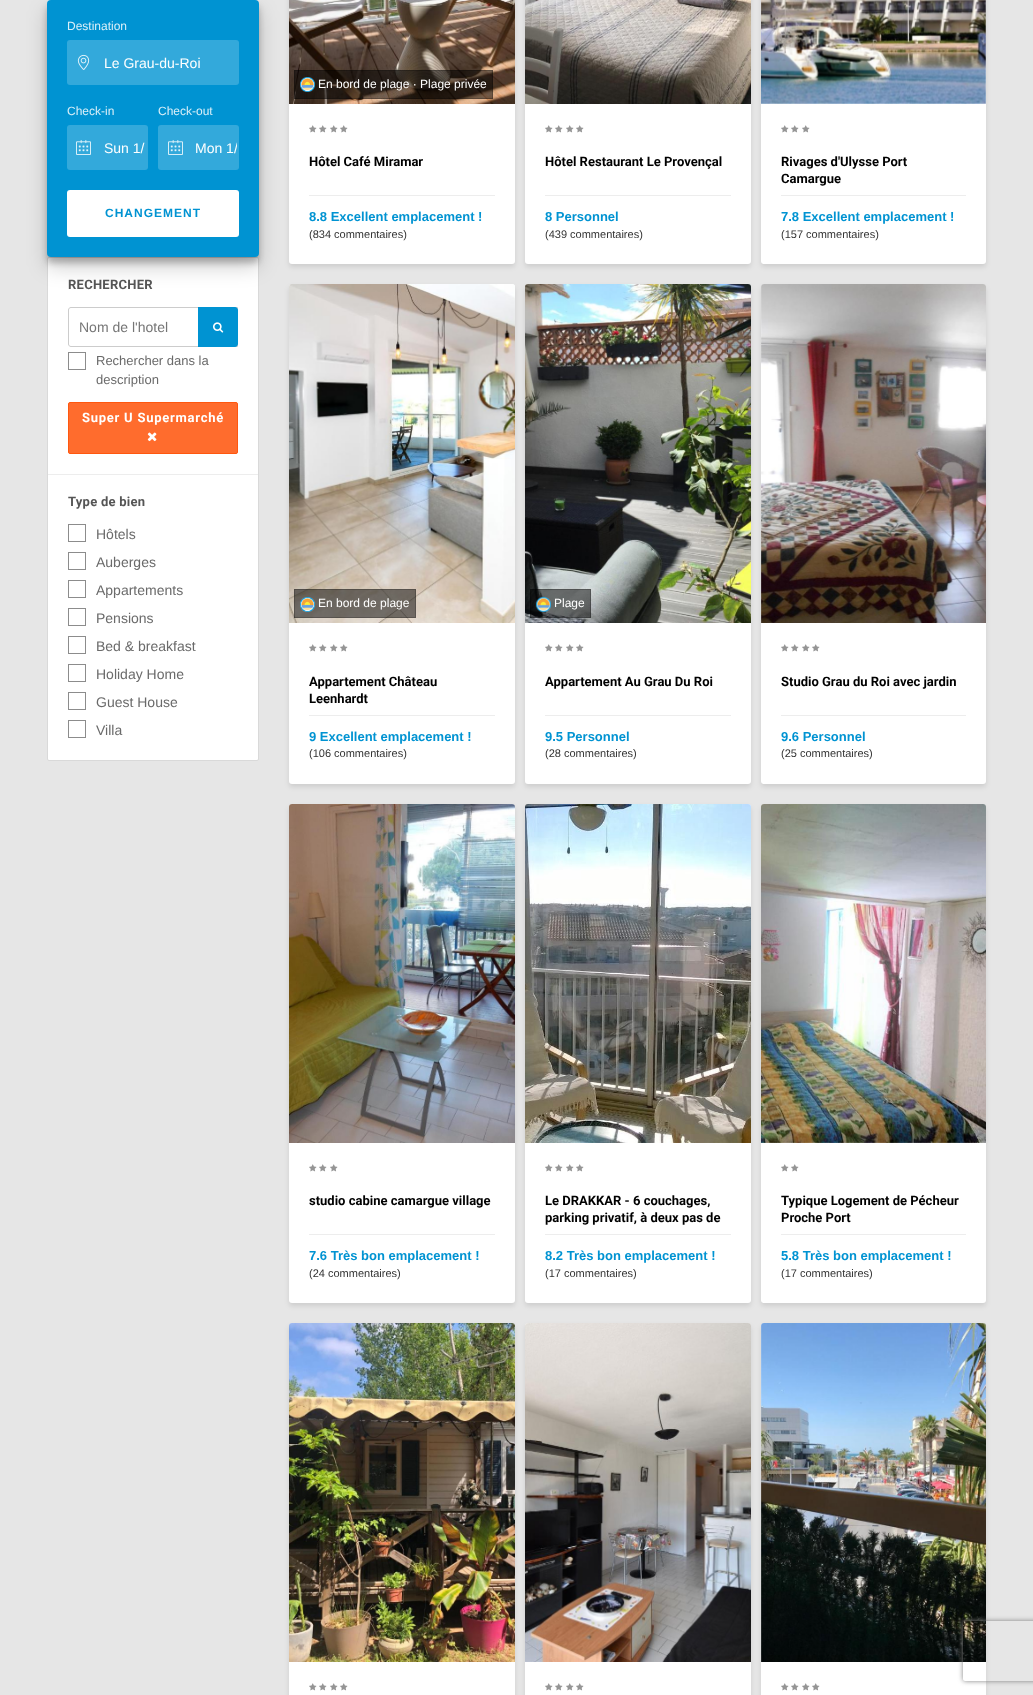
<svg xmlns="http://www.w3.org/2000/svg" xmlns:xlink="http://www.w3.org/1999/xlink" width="1033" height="1695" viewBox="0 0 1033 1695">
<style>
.cls-1{font:12px Liberation Sans;fill:#d9eff8}
.cls-2{font:14px Liberation Sans;fill:#ffffff}
.cls-3{font:bold 12px Liberation Sans;letter-spacing:1px;fill:#0093d2}
.cls-4{font:bold 13px Roboto;letter-spacing:0.25px;fill:#555555}
.cls-5{font:14px Liberation Sans;fill:#757575}
.cls-6{font:13px Liberation Sans;fill:#6a6a6a}
.cls-7{font:bold 13px Roboto;letter-spacing:0.75px;fill:#ffffff}
.cls-8{font:14px Liberation Sans;fill:#6a6a6a}
.cls-9{font:12px Liberation Sans;fill:#ffffff}
.cls-10{font:bold 13px Roboto;fill:#000000}
.cls-11{font:bold 13px Liberation Sans;fill:#0093d2}
.cls-12{font:11px Liberation Sans;fill:#333333}
</style>
<defs>
<clipPath id="clip1"><path d="M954 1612H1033V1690H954ZM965 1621H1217C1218 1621 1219 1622 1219 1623V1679C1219 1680 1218 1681 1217 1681H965C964 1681 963 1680 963 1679V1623C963 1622 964 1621 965 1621Z" clip-rule="evenodd"/></clipPath>
<clipPath id="clip2"><rect x="195" y="140" width="42" height="16"/></clipPath>
</defs>
<rect width="100%" height="100%" fill="#e6e6e6"/>
<rect fill="#ffffff" stroke="#d9d9d9" x="47.5" y="257.5" width="211" height="503" rx="1.5"/>
<rect fill="#000000" fill-opacity="0.23" filter="blur(3px)" x="47" y="6" width="212" height="257" rx="4"/>
<rect fill="#000000" fill-opacity="0.19" filter="blur(10px)" x="47" y="10" width="212" height="257" rx="4"/>
<rect fill="#0093d2" x="47" y="0" width="212" height="257" rx="4"/>
<rect fill="#33a9db" x="67" y="40" width="172" height="45" rx="3"/>
<image xlink:href="image0.png" x="77" y="54" width="13" height="16"/>
<rect fill="#33a9db" x="67" y="125" width="81" height="45" rx="3"/>
<image xlink:href="image1.png" x="76" y="140" width="15" height="15"/>
<rect fill="#33a9db" x="158" y="125" width="81" height="45" rx="3"/>
<image xlink:href="image1.png" x="168" y="140" width="15" height="15"/>
<rect fill="#ffffff" x="67" y="190" width="172" height="47" rx="3"/>
<rect fill="#ededed" x="48" y="474" width="210" height="1"/>
<path fill="none" stroke="#cccccc" d="M71 307.5H237.5V346.5H71C69.5 346.5 68.5 345.5 68.5 344V310C68.5 308.5 69.5 307.5 71 307.5Z"/>
<path fill="#0093d2" d="M198 307H235C236.5 307 238 308.5 238 310V344C238 345.5 236.5 347 235 347H198Z"/>
<image xlink:href="image2.png" x="213" y="322" width="11" height="11"/>
<rect fill="none" stroke="#8c8c8c" x="68.5" y="352.5" width="17" height="17"/>
<rect fill="#ff6c2d" stroke="#ff570f" x="68.5" y="402.5" width="169" height="51" rx="1.5"/>
<image xlink:href="image3.png" x="147" y="432" width="10" height="10"/>
<rect fill="none" stroke="#8c8c8c" x="68.5" y="524.5" width="17" height="17"/>
<rect fill="none" stroke="#8c8c8c" x="68.5" y="552.5" width="17" height="17"/>
<rect fill="none" stroke="#8c8c8c" x="68.5" y="580.5" width="17" height="17"/>
<rect fill="none" stroke="#8c8c8c" x="68.5" y="608.5" width="17" height="17"/>
<rect fill="none" stroke="#8c8c8c" x="68.5" y="636.5" width="17" height="17"/>
<rect fill="none" stroke="#8c8c8c" x="68.5" y="664.5" width="17" height="17"/>
<rect fill="none" stroke="#8c8c8c" x="68.5" y="692.5" width="17" height="17"/>
<rect fill="none" stroke="#8c8c8c" x="68.5" y="720.5" width="17" height="17"/>
<rect fill="#000000" fill-opacity="0.1" filter="blur(2.5px)" x="289" y="-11" width="226" height="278" rx="3"/>
<rect fill="#ffffff" x="289" y="-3" width="226" height="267" rx="3"/>
<image xlink:href="image4.png" x="289" y="0" width="226" height="104"/>
<rect fill="#000000" fill-opacity="0.5" x="294" y="70" width="199" height="29"/>
<rect fill="none" stroke="#000000" stroke-opacity="0.2" x="294.5" y="70.5" width="198" height="28"/>
<image xlink:href="image5.png" x="300" y="77" width="15" height="15"/>
<image xlink:href="image6.png" x="309" y="125" width="8" height="8"/>
<image xlink:href="image6.png" x="319" y="125" width="8" height="8"/>
<image xlink:href="image6.png" x="330" y="125" width="8" height="8"/>
<image xlink:href="image6.png" x="340" y="125" width="8" height="8"/>
<rect fill="#ededed" x="309" y="195" width="186" height="1"/>
<rect fill="#000000" fill-opacity="0.1" filter="blur(2.5px)" x="525" y="-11" width="226" height="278" rx="3"/>
<rect fill="#ffffff" x="525" y="-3" width="226" height="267" rx="3"/>
<image xlink:href="image7.png" x="525" y="0" width="226" height="104"/>
<image xlink:href="image6.png" x="545" y="125" width="8" height="8"/>
<image xlink:href="image6.png" x="555" y="125" width="8" height="8"/>
<image xlink:href="image6.png" x="566" y="125" width="8" height="8"/>
<image xlink:href="image6.png" x="576" y="125" width="8" height="8"/>
<rect fill="#ededed" x="545" y="195" width="186" height="1"/>
<rect fill="#000000" fill-opacity="0.1" filter="blur(2.5px)" x="761" y="-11" width="225" height="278" rx="3"/>
<rect fill="#ffffff" x="761" y="-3" width="225" height="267" rx="3"/>
<image xlink:href="image8.png" x="761" y="0" width="225" height="104"/>
<image xlink:href="image6.png" x="781" y="125" width="8" height="8"/>
<image xlink:href="image6.png" x="791" y="125" width="8" height="8"/>
<image xlink:href="image6.png" x="802" y="125" width="8" height="8"/>
<rect fill="#ededed" x="781" y="195" width="185" height="1"/>
<rect fill="#000000" fill-opacity="0.1" filter="blur(2.5px)" x="289" y="287" width="226" height="500" rx="3"/>
<rect fill="#ffffff" x="289" y="284" width="226" height="500" rx="3"/>
<image xlink:href="image9.png" x="289" y="284" width="226" height="339"/>
<rect fill="#000000" fill-opacity="0.5" x="294" y="589" width="122" height="29"/>
<rect fill="none" stroke="#000000" stroke-opacity="0.2" x="294.5" y="589.5" width="121" height="28"/>
<image xlink:href="image10.png" x="300" y="597" width="15" height="15"/>
<image xlink:href="image6.png" x="309" y="644" width="8" height="8"/>
<image xlink:href="image6.png" x="319" y="644" width="8" height="8"/>
<image xlink:href="image6.png" x="330" y="644" width="8" height="8"/>
<image xlink:href="image6.png" x="340" y="644" width="8" height="8"/>
<rect fill="#ededed" x="309" y="715" width="186" height="1"/>
<rect fill="#000000" fill-opacity="0.1" filter="blur(2.5px)" x="525" y="287" width="226" height="500" rx="3"/>
<rect fill="#ffffff" x="525" y="284" width="226" height="500" rx="3"/>
<image xlink:href="image11.png" x="525" y="284" width="226" height="339"/>
<rect fill="#000000" fill-opacity="0.5" x="530" y="589" width="61" height="29"/>
<rect fill="none" stroke="#000000" stroke-opacity="0.2" x="530.5" y="589.5" width="60" height="28"/>
<image xlink:href="image12.png" x="535" y="596" width="16" height="16"/>
<image xlink:href="image6.png" x="545" y="644" width="8" height="8"/>
<image xlink:href="image6.png" x="555" y="644" width="8" height="8"/>
<image xlink:href="image6.png" x="566" y="644" width="8" height="8"/>
<image xlink:href="image6.png" x="576" y="644" width="8" height="8"/>
<rect fill="#ededed" x="545" y="715" width="186" height="1"/>
<rect fill="#000000" fill-opacity="0.1" filter="blur(2.5px)" x="761" y="287" width="225" height="500" rx="3"/>
<rect fill="#ffffff" x="761" y="284" width="225" height="500" rx="3"/>
<image xlink:href="image13.png" x="761" y="284" width="225" height="339"/>
<image xlink:href="image6.png" x="781" y="644" width="8" height="8"/>
<image xlink:href="image6.png" x="791" y="644" width="8" height="8"/>
<image xlink:href="image6.png" x="802" y="644" width="8" height="8"/>
<image xlink:href="image6.png" x="812" y="644" width="8" height="8"/>
<rect fill="#ededed" x="781" y="715" width="185" height="1"/>
<rect fill="#000000" fill-opacity="0.1" filter="blur(2.5px)" x="289" y="807" width="226" height="499" rx="3"/>
<rect fill="#ffffff" x="289" y="804" width="226" height="499" rx="3"/>
<image xlink:href="image14.png" x="289" y="804" width="226" height="339"/>
<image xlink:href="image6.png" x="309" y="1164" width="8" height="8"/>
<image xlink:href="image6.png" x="319" y="1164" width="8" height="8"/>
<image xlink:href="image6.png" x="330" y="1164" width="8" height="8"/>
<rect fill="#ededed" x="309" y="1234" width="186" height="1"/>
<rect fill="#000000" fill-opacity="0.1" filter="blur(2.5px)" x="525" y="807" width="226" height="499" rx="3"/>
<rect fill="#ffffff" x="525" y="804" width="226" height="499" rx="3"/>
<image xlink:href="image15.png" x="525" y="804" width="226" height="339"/>
<image xlink:href="image6.png" x="545" y="1164" width="8" height="8"/>
<image xlink:href="image6.png" x="555" y="1164" width="8" height="8"/>
<image xlink:href="image6.png" x="566" y="1164" width="8" height="8"/>
<image xlink:href="image6.png" x="576" y="1164" width="8" height="8"/>
<rect fill="#ededed" x="545" y="1234" width="186" height="1"/>
<rect fill="#000000" fill-opacity="0.1" filter="blur(2.5px)" x="761" y="807" width="225" height="499" rx="3"/>
<rect fill="#ffffff" x="761" y="804" width="225" height="499" rx="3"/>
<image xlink:href="image16.png" x="761" y="804" width="225" height="339"/>
<image xlink:href="image6.png" x="781" y="1164" width="8" height="8"/>
<image xlink:href="image6.png" x="791" y="1164" width="8" height="8"/>
<rect fill="#ededed" x="781" y="1234" width="185" height="1"/>
<rect fill="#000000" fill-opacity="0.1" filter="blur(2.5px)" x="289" y="1326" width="226" height="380" rx="3"/>
<rect fill="#ffffff" x="289" y="1323" width="226" height="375" rx="3"/>
<image xlink:href="image17.png" x="289" y="1323" width="226" height="339"/>
<image xlink:href="image6.png" x="309" y="1683" width="8" height="8"/>
<image xlink:href="image6.png" x="319" y="1683" width="8" height="8"/>
<image xlink:href="image6.png" x="330" y="1683" width="8" height="8"/>
<image xlink:href="image6.png" x="340" y="1683" width="8" height="8"/>
<rect fill="#000000" fill-opacity="0.1" filter="blur(2.5px)" x="525" y="1326" width="226" height="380" rx="3"/>
<rect fill="#ffffff" x="525" y="1323" width="226" height="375" rx="3"/>
<image xlink:href="image18.png" x="525" y="1323" width="226" height="339"/>
<image xlink:href="image6.png" x="545" y="1683" width="8" height="8"/>
<image xlink:href="image6.png" x="555" y="1683" width="8" height="8"/>
<image xlink:href="image6.png" x="566" y="1683" width="8" height="8"/>
<image xlink:href="image6.png" x="576" y="1683" width="8" height="8"/>
<rect fill="#000000" fill-opacity="0.1" filter="blur(2.5px)" x="761" y="1326" width="225" height="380" rx="3"/>
<rect fill="#ffffff" x="761" y="1323" width="225" height="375" rx="3"/>
<image xlink:href="image19.png" x="761" y="1323" width="225" height="339"/>
<image xlink:href="image6.png" x="781" y="1683" width="8" height="8"/>
<image xlink:href="image6.png" x="791" y="1683" width="8" height="8"/>
<image xlink:href="image6.png" x="802" y="1683" width="8" height="8"/>
<image xlink:href="image6.png" x="812" y="1683" width="8" height="8"/>
<g clip-path="url(#clip1)">
<rect fill="#808080" filter="blur(2.5px)" x="963" y="1621" width="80" height="60" rx="2"/>
</g>
<text class="cls-1" x="67" y="30">Destination</text>
<text class="cls-2" x="104" y="68">Le Grau-du-Roi</text>
<text class="cls-1" x="67" y="115">Check-in</text>
<text class="cls-2" x="104" y="153">Sun 1/</text>
<text class="cls-1" x="158" y="115">Check-out</text>
<g clip-path="url(#clip2)">
<text class="cls-2" x="195" y="153">Mon 1/</text>
</g>
<text class="cls-3" x="105" y="217">CHANGEMENT</text>
<text class="cls-4" x="68" y="289">RECHERCHER</text>
<text class="cls-5" x="79" y="332">Nom de l'hotel</text>
<text class="cls-6"><tspan x="96" y="365">Rechercher dans la</tspan><tspan x="96" y="384">description</tspan></text>
<text class="cls-7" x="82" y="422">Super U Supermarché</text>
<text class="cls-4" x="68" y="506">Type de bien</text>
<text class="cls-8" x="96" y="539">Hôtels</text>
<text class="cls-8" x="96" y="567">Auberges</text>
<text class="cls-8" x="96" y="595">Appartements</text>
<text class="cls-8" x="96" y="623">Pensions</text>
<text class="cls-8" x="96" y="651">Bed &amp; breakfast</text>
<text class="cls-8" x="96" y="679">Holiday Home</text>
<text class="cls-8" x="96" y="707">Guest House</text>
<text class="cls-8" x="96" y="735">Villa</text>
<text class="cls-9" x="318" y="88">En bord de plage · Plage privée</text>
<text class="cls-10" x="309" y="166">Hôtel Café Miramar</text>
<text class="cls-11" x="309" y="221">8.8 Excellent emplacement !</text>
<text class="cls-12" x="309" y="238">(834 commentaires)</text>
<text class="cls-10" x="545" y="166">Hôtel Restaurant Le Provençal</text>
<text class="cls-11" x="545" y="221">8 Personnel</text>
<text class="cls-12" x="545" y="238">(439 commentaires)</text>
<text class="cls-10"><tspan x="781" y="166">Rivages d'Ulysse Port</tspan><tspan x="781" y="183">Camargue</tspan></text>
<text class="cls-11" x="781" y="221">7.8 Excellent emplacement !</text>
<text class="cls-12" x="781" y="238">(157 commentaires)</text>
<text class="cls-9" x="318" y="607">En bord de plage</text>
<text class="cls-10"><tspan x="309" y="686">Appartement Château</tspan><tspan x="309" y="703">Leenhardt</tspan></text>
<text class="cls-11" x="309" y="741">9 Excellent emplacement !</text>
<text class="cls-12" x="309" y="757">(106 commentaires)</text>
<text class="cls-9" x="554" y="607">Plage</text>
<text class="cls-10" x="545" y="686">Appartement Au Grau Du Roi</text>
<text class="cls-11" x="545" y="741">9.5 Personnel</text>
<text class="cls-12" x="545" y="757">(28 commentaires)</text>
<text class="cls-10" x="781" y="686">Studio Grau du Roi avec jardin</text>
<text class="cls-11" x="781" y="741">9.6 Personnel</text>
<text class="cls-12" x="781" y="757">(25 commentaires)</text>
<text class="cls-10" x="309" y="1205">studio cabine camargue village</text>
<text class="cls-11" x="309" y="1260">7.6 Très bon emplacement !</text>
<text class="cls-12" x="309" y="1277">(24 commentaires)</text>
<text class="cls-10"><tspan x="545" y="1205">Le DRAKKAR - 6 couchages,</tspan><tspan x="545" y="1222">parking privatif, à deux pas de</tspan></text>
<text class="cls-11" x="545" y="1260">8.2 Très bon emplacement !</text>
<text class="cls-12" x="545" y="1277">(17 commentaires)</text>
<text class="cls-10"><tspan x="781" y="1205">Typique Logement de Pécheur</tspan><tspan x="781" y="1222">Proche Port</tspan></text>
<text class="cls-11" x="781" y="1260">5.8 Très bon emplacement !</text>
<text class="cls-12" x="781" y="1277">(17 commentaires)</text>
</svg>
